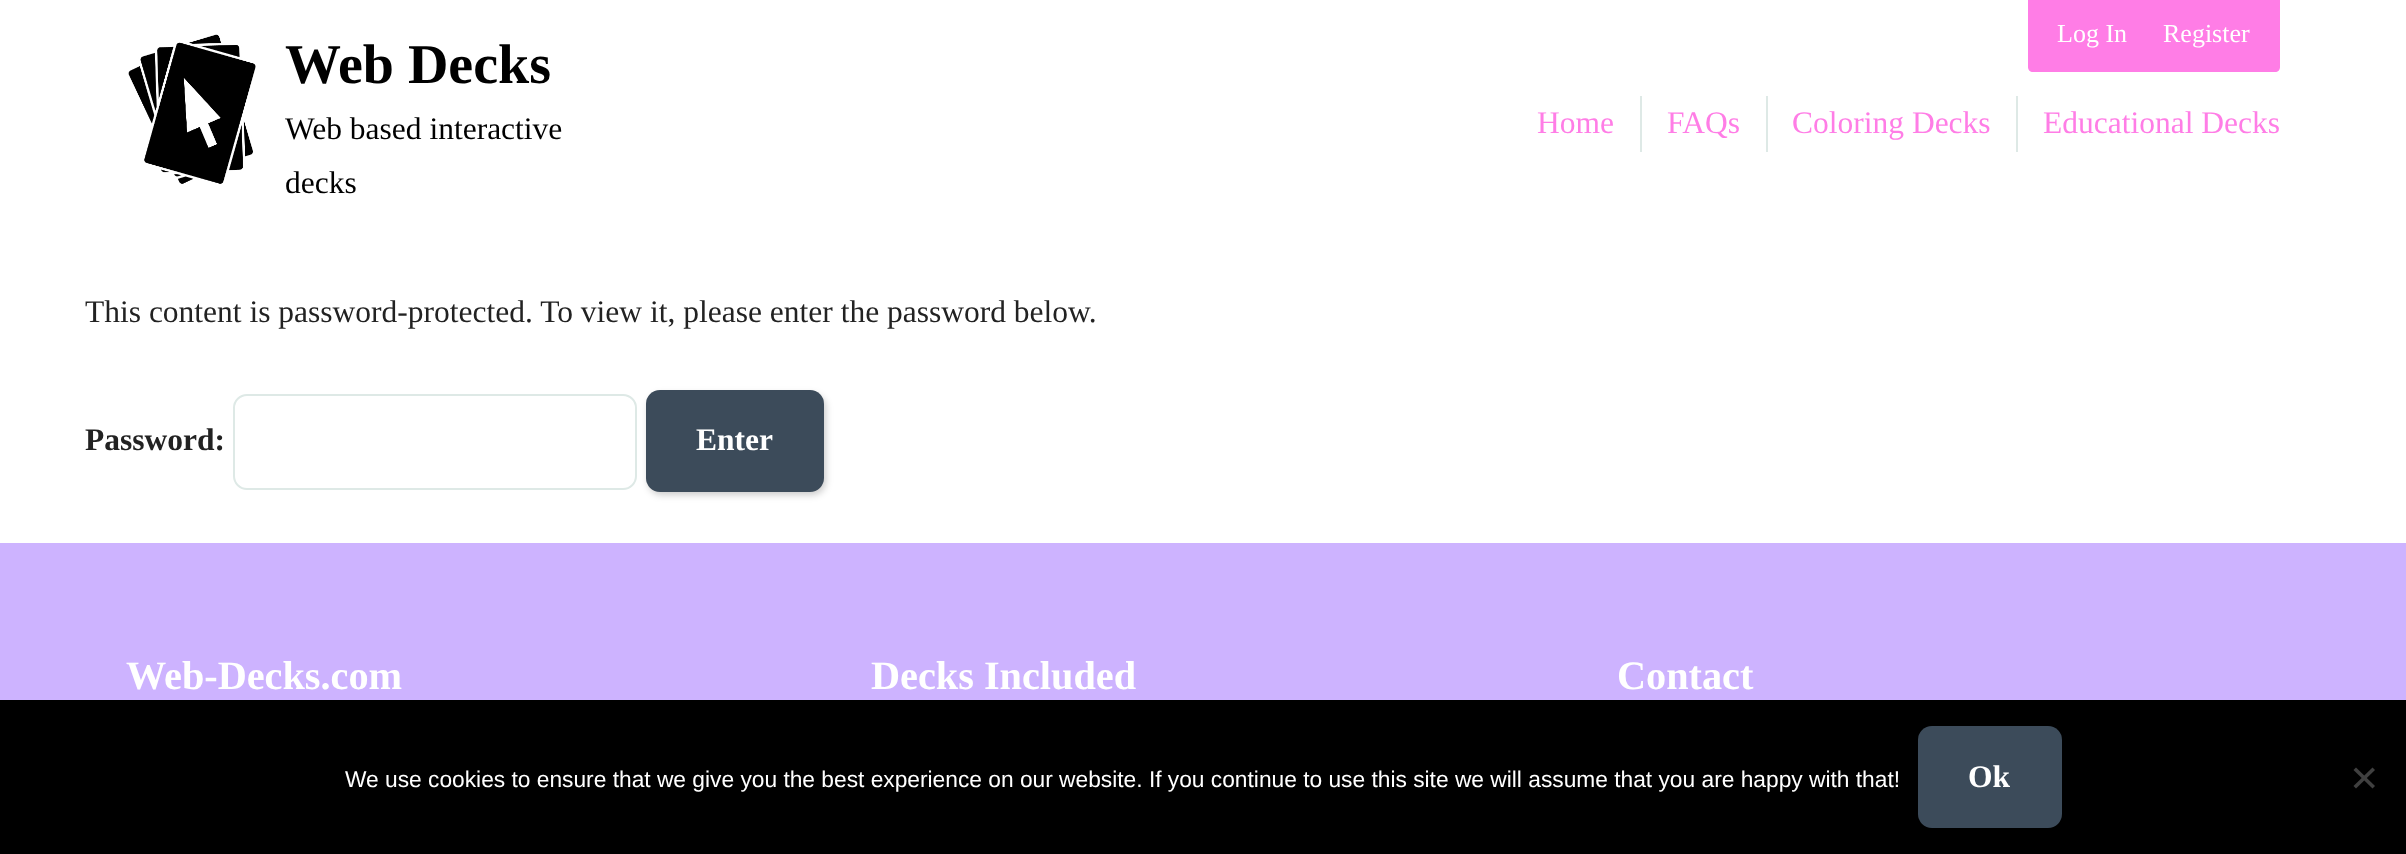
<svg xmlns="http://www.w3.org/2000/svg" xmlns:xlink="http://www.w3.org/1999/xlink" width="2406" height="854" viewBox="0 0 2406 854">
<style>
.cls-1{font:bold 56px Liberation Serif;fill:#000000}
.cls-2{font:31.5px Liberation Serif;fill:#000000}
.cls-3{font:26px Liberation Serif;fill:#ffffff}
.cls-4{font:31.5px Liberation Serif;fill:#ff7de6}
.cls-5{font:31.5px Liberation Serif;fill:#222222}
.cls-6{font:bold 31.5px Liberation Serif;fill:#222222}
.cls-7{font:bold 31.5px Liberation Serif;fill:#ffffff}
.cls-8{font:bold 40.25px Liberation Serif;fill:#ffffff}
.cls-9{font:22.75px Liberation Sans;fill:#ffffff}
</style>
<rect width="100%" height="100%" fill="#ffffff"/>
<image xlink:href="image0.png" x="128" y="34" width="128" height="150"/>
<path fill="#ff7de6" d="M2028 0H2280V67C2280 70 2278 72 2275 72H2033C2030 72 2028 70 2028 67Z"/>
<rect fill="#dee9e6" x="1640" y="96" width="2" height="56"/>
<rect fill="#dee9e6" x="1766" y="96" width="2" height="56"/>
<rect fill="#dee9e6" x="2016" y="96" width="2" height="56"/>
<rect fill="none" stroke="#dee9e6" stroke-width="2" x="234" y="395" width="402" height="94" rx="13"/>
<rect fill="#000000" fill-opacity="0.2" filter="blur(3.5px)" x="648" y="394" width="178" height="101" rx="14"/>
<rect fill="#3c4b5a" x="646" y="390" width="178" height="102" rx="14"/>
<rect fill="#cdb3ff" x="0" y="543" width="2406" height="157"/>
<rect fill="#000000" x="0" y="700" width="2406" height="154"/>
<rect fill="#3c4b5a" x="1918" y="726" width="144" height="102" rx="14"/>
<path fill="#404040" d="M2372.5 767.5L2375 770L2356 788.5L2353.5 786Z"/>
<path fill="#404040" d="M2353.5 770L2356 767.5L2375 786L2372.5 788.5Z"/>
<text class="cls-1" x="285" y="83">Web Decks</text>
<text class="cls-2"><tspan x="285" y="139">Web based interactive</tspan><tspan x="285" y="193">decks</tspan></text>
<text class="cls-3" x="2057" y="42">Log In</text>
<text class="cls-3" x="2163" y="42">Register</text>
<text class="cls-4" x="1537" y="133">Home</text>
<text class="cls-4" x="1667" y="133">FAQs</text>
<text class="cls-4" x="1792" y="133">Coloring Decks</text>
<text class="cls-4" x="2043" y="133">Educational Decks</text>
<text class="cls-5" x="85" y="322">This content is password-protected. To view it, please enter the password below.</text>
<text class="cls-6" x="85" y="450">Password:</text>
<text class="cls-7" x="696" y="450">Enter</text>
<text class="cls-8" x="126" y="689">Web-Decks.com</text>
<text class="cls-8" x="871" y="689">Decks Included</text>
<text class="cls-8" x="1617" y="689">Contact</text>
<text class="cls-9" x="345" y="787">We use cookies to ensure that we give you the best experience on our website. If you continue to use this site we will assume that you are happy with that!</text>
<text class="cls-7" x="1968" y="787">Ok</text>
</svg>
